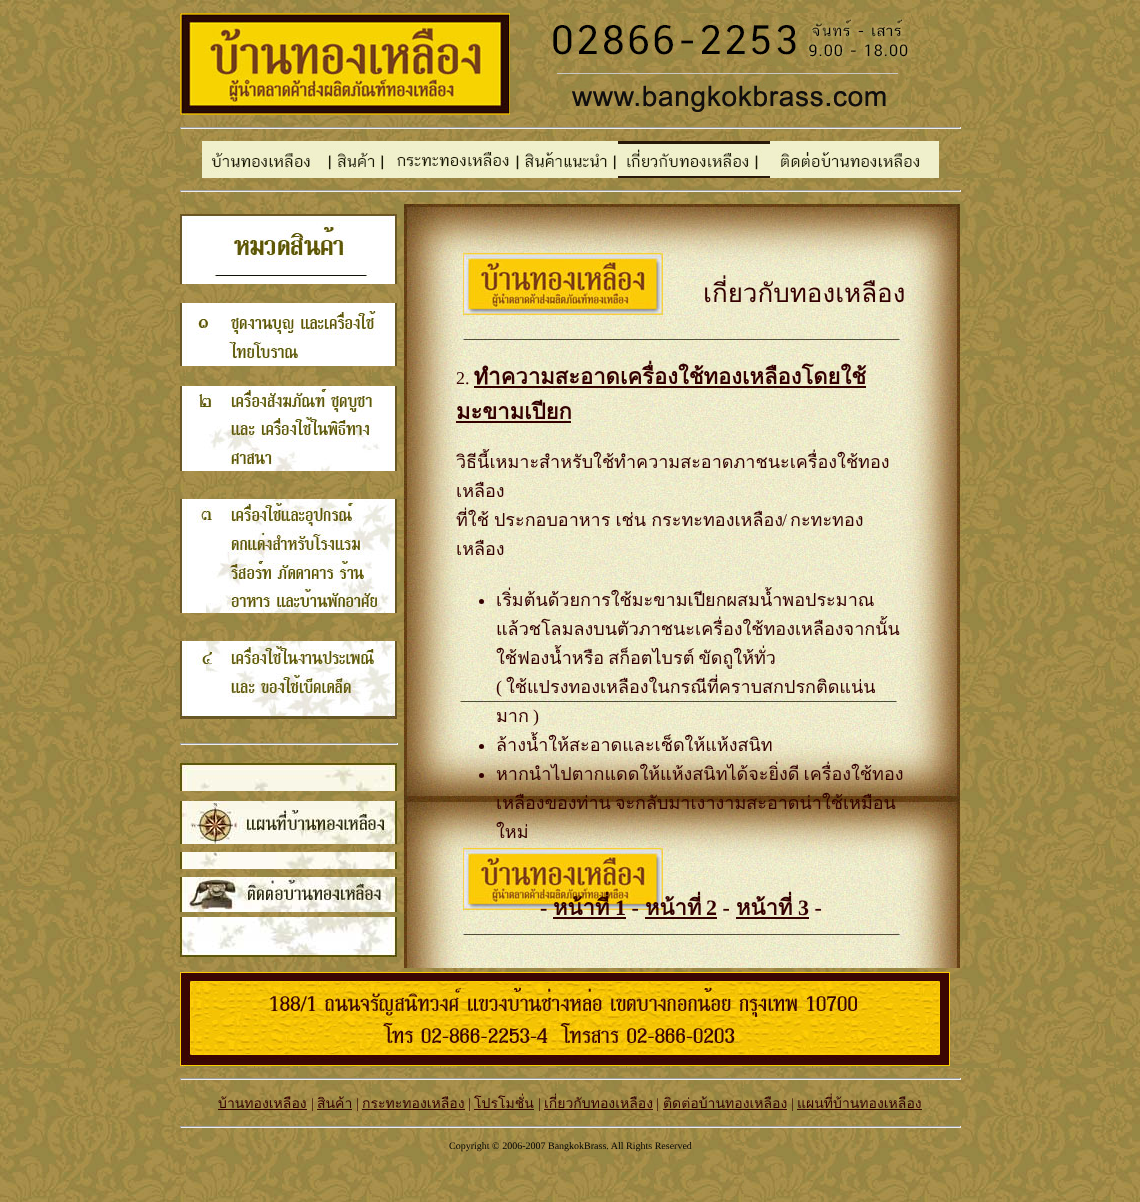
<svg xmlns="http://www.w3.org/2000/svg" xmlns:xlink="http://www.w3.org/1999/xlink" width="1140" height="1202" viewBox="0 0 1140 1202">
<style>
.cls-1{font:26px Loma;fill:#330000}
.cls-2{font:18px Liberation Serif;fill:#330000}
.cls-3{font:bold 22px Loma;fill:#330000}
.cls-4{font:18px Loma;fill:#330000}
.cls-5{font:bold 22px Liberation Serif;fill:#330000}
.cls-6{font:14px Loma;fill:#330000}
.cls-7{font:14px Liberation Serif;fill:#330000}
.cls-8{font:10px Liberation Serif;fill:#000000}
</style>
<rect width="100%" height="100%" fill="#ffffff"/>
<image xlink:href="image0.png" x="0" y="0" width="1140" height="1202"/>
<image xlink:href="image1.png" x="180" y="13" width="330" height="102"/>
<image xlink:href="image2.png" x="548" y="13" width="363" height="53"/>
<image xlink:href="image3.png" x="548" y="66" width="363" height="49"/>
<rect fill="#9f9f9f" x="180" y="127" width="781" height="1"/>
<rect fill="#eeeeee" x="960" y="127" width="1" height="2"/>
<rect fill="#eeeeee" x="180" y="128" width="781" height="1"/>
<rect fill="#9f9f9f" x="180" y="127" width="1" height="2"/>
<image xlink:href="image4.png" x="202" y="141" width="115" height="37"/>
<image xlink:href="image5.png" x="317" y="141" width="80" height="37"/>
<image xlink:href="image6.png" x="397" y="141" width="117" height="37"/>
<image xlink:href="image7.png" x="514" y="141" width="104" height="37"/>
<image xlink:href="image8.png" x="618" y="141" width="152" height="37"/>
<image xlink:href="image9.png" x="770" y="141" width="169" height="37"/>
<rect fill="#9f9f9f" x="180" y="190" width="781" height="1"/>
<rect fill="#eeeeee" x="960" y="190" width="1" height="2"/>
<rect fill="#eeeeee" x="180" y="191" width="781" height="1"/>
<rect fill="#9f9f9f" x="180" y="190" width="1" height="2"/>
<image xlink:href="image10.png" x="180" y="303" width="217" height="63"/>
<image xlink:href="image11.png" x="180" y="214" width="217" height="70"/>
<image xlink:href="image12.png" x="404" y="204" width="556" height="764"/>
<rect fill="#330000" x="474" y="386" width="392" height="2"/>
<rect fill="#330000" x="456" y="421" width="115" height="2"/>
<circle fill="#330000" cx="481.5" cy="601.5" r="2.5"/>
<circle fill="#330000" cx="481.5" cy="746.5" r="2.5"/>
<circle fill="#330000" cx="481.5" cy="775.5" r="2.5"/>
<rect fill="#330000" x="553" y="917" width="73" height="2"/>
<rect fill="#330000" x="645" y="917" width="72" height="2"/>
<rect fill="#330000" x="736" y="917" width="73" height="2"/>
<image xlink:href="image13.png" x="180" y="386" width="217" height="85"/>
<image xlink:href="image14.png" x="180" y="499" width="217" height="114"/>
<image xlink:href="image15.png" x="180" y="641" width="217" height="78"/>
<rect fill="#9f9f9f" x="180" y="743" width="218" height="1"/>
<rect fill="#eeeeee" x="397" y="743" width="1" height="2"/>
<rect fill="#eeeeee" x="180" y="744" width="218" height="1"/>
<rect fill="#9f9f9f" x="180" y="743" width="1" height="2"/>
<image xlink:href="image16.png" x="180" y="763" width="217" height="28"/>
<image xlink:href="image17.png" x="180" y="801" width="217" height="43"/>
<image xlink:href="image18.png" x="180" y="852" width="217" height="17"/>
<image xlink:href="image19.png" x="180" y="877" width="217" height="35"/>
<image xlink:href="image20.png" x="180" y="917" width="217" height="40"/>
<image xlink:href="image21.png" x="180" y="972" width="770" height="94"/>
<rect fill="#9f9f9f" x="180" y="1078" width="781" height="1"/>
<rect fill="#eeeeee" x="960" y="1078" width="1" height="2"/>
<rect fill="#eeeeee" x="180" y="1079" width="781" height="1"/>
<rect fill="#9f9f9f" x="180" y="1078" width="1" height="2"/>
<rect fill="#330000" x="218" y="1109" width="89" height="1"/>
<rect fill="#330000" x="317" y="1109" width="35" height="1"/>
<rect fill="#330000" x="362" y="1109" width="103" height="1"/>
<rect fill="#330000" x="474" y="1109" width="60" height="1"/>
<rect fill="#330000" x="544" y="1109" width="109" height="1"/>
<rect fill="#330000" x="663" y="1109" width="124" height="1"/>
<rect fill="#330000" x="797" y="1109" width="125" height="1"/>
<rect fill="#9f9f9f" x="180" y="1126" width="781" height="1"/>
<rect fill="#eeeeee" x="960" y="1126" width="1" height="2"/>
<rect fill="#eeeeee" x="180" y="1127" width="781" height="1"/>
<rect fill="#9f9f9f" x="180" y="1126" width="1" height="2"/>
<text class="cls-1" x="703" y="302">เกี่ยวกับทองเหลือง</text>
<text class="cls-2" x="456" y="384">2.</text>
<text class="cls-3" x="474" y="384">ทำความสะอาดเครื่องใช้ทองเหลืองโดยใช้</text>
<text class="cls-3" x="456" y="419">มะขามเปียก</text>
<text class="cls-4"><tspan x="456" y="468">วิธีนี้เหมาะสำหรับใช้ทำความสะอาดภาชนะเครื่องใช้ทอง</tspan><tspan x="456" y="497">เหลือง</tspan><tspan x="456" y="526" word-spacing="-1">ที่ใช้ ประกอบอาหาร เช่น กระทะทองเหลือง</tspan></text>
<text class="cls-2" x="782" y="526">/</text>
<text class="cls-4" x="790" y="526">กะทะทอง</text>
<text class="cls-4" x="456" y="555">เหลือง</text>
<text class="cls-4"><tspan x="496" y="606">เริ่มต้นด้วยการใช้มะขามเปียกผสมน้ำพอประมาณ</tspan><tspan x="496" y="635">แล้วชโลมลงบนตัวภาชนะเครื่องใช้ทองเหลืองจากนั้น</tspan><tspan x="496" y="664" word-spacing="-2">ใช้ฟองน้ำหรือ สก็อตไบรต์ ขัดถูให้ทั่ว</tspan></text>
<text class="cls-2" x="496" y="693">(</text>
<text class="cls-4" x="506" y="693">ใช้แปรงทองเหลืองในกรณีที่คราบสกปรกติดแน่น</text>
<text class="cls-4" x="496" y="722">มาก</text>
<text class="cls-2" x="533" y="722">)</text>
<text class="cls-4"><tspan x="496" y="751">ล้างน้ำให้สะอาดและเช็ดให้แห้งสนิท</tspan><tspan x="496" y="780" word-spacing="-2">หากนำไปตากแดดให้แห้งสนิทได้จะยิ่งดี เครื่องใช้ทอง</tspan><tspan x="496" y="809" word-spacing="-2">เหลืองของท่าน จะกลับมาเงางามสะอาดน่าใช้เหมือน</tspan><tspan x="496" y="838">ใหม่</tspan></text>
<text class="cls-5" x="540" y="915">-</text>
<text class="cls-3" x="553" y="915">หน้าที่</text>
<text class="cls-5" x="615" y="915">1 -</text>
<text class="cls-3" x="645" y="915">หน้าที่</text>
<text class="cls-5" x="706" y="915">2 -</text>
<text class="cls-3" x="736" y="915">หน้าที่</text>
<text class="cls-5" x="798" y="915">3 -</text>
<text class="cls-6" x="218" y="1108">บ้านทองเหลือง</text>
<text class="cls-6" x="362" y="1108">กระทะทองเหลือง</text>
<text class="cls-6" x="474" y="1108">โปรโมชั่น</text>
<text class="cls-6" x="544" y="1108">เกี่ยวกับทองเหลือง</text>
<text class="cls-6" x="797" y="1108">แผนที่บ้านทองเหลือง</text>
<text class="cls-7" x="311" y="1108">|</text>
<text class="cls-6" x="317" y="1108">สินค้า</text>
<text class="cls-7" x="356" y="1108">|</text>
<text class="cls-7" x="468" y="1108">|</text>
<text class="cls-7" x="538" y="1108">|</text>
<text class="cls-7" x="656" y="1108">|</text>
<text class="cls-6" x="663" y="1108">ติดต่อบ้านทองเหลือง</text>
<text class="cls-7" x="791" y="1108">|</text>
<text class="cls-8" x="449" y="1149">Copyright © 2006-2007 BangkokBrass. All Rights Reserved</text>
</svg>
